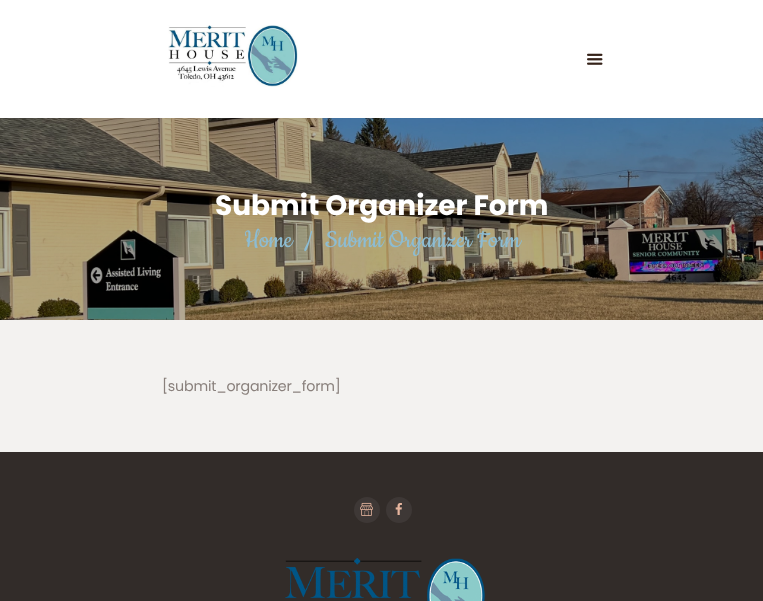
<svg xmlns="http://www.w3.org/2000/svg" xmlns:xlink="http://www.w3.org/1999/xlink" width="763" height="601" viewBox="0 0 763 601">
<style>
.cls-1{font:bold 28px Poppins;fill:#ffffff}
.cls-2{font:28px Cookie;letter-spacing:-0.2px;fill:#8dbcd2}
.cls-3{font:14.25px Poppins;letter-spacing:-0.2px;fill:#89807c}
</style>
<rect width="100%" height="100%" fill="#f3f2f0"/>
<rect fill="#ffffff" x="0" y="0" width="763" height="118"/>
<image xlink:href="image0.png" x="168" y="25" width="130" height="62"/>
<image xlink:href="image1.png" x="587" y="53" width="16" height="12"/>
<image xlink:href="image2.png" x="0" y="118" width="763" height="202"/>
<rect fill="#322c29" x="0" y="452" width="763" height="149"/>
<circle fill="#3e3836" cx="367" cy="510" r="13"/>
<image xlink:href="image3.png" x="360" y="502" width="13" height="14"/>
<circle fill="#3e3836" cx="399" cy="510" r="13"/>
<image xlink:href="image4.png" x="395" y="502" width="7" height="13"/>
<image xlink:href="image5.png" x="285" y="558" width="200" height="43"/>
<text class="cls-1" x="215" y="215">Submit Organizer Form</text>
<text class="cls-2" x="244" y="247">Home</text>
<text class="cls-2" x="305" y="247">/</text>
<text class="cls-2" x="325" y="247">Submit Organizer Form</text>
<text class="cls-3" x="162" y="391">[submit_organizer_form]</text>
</svg>
